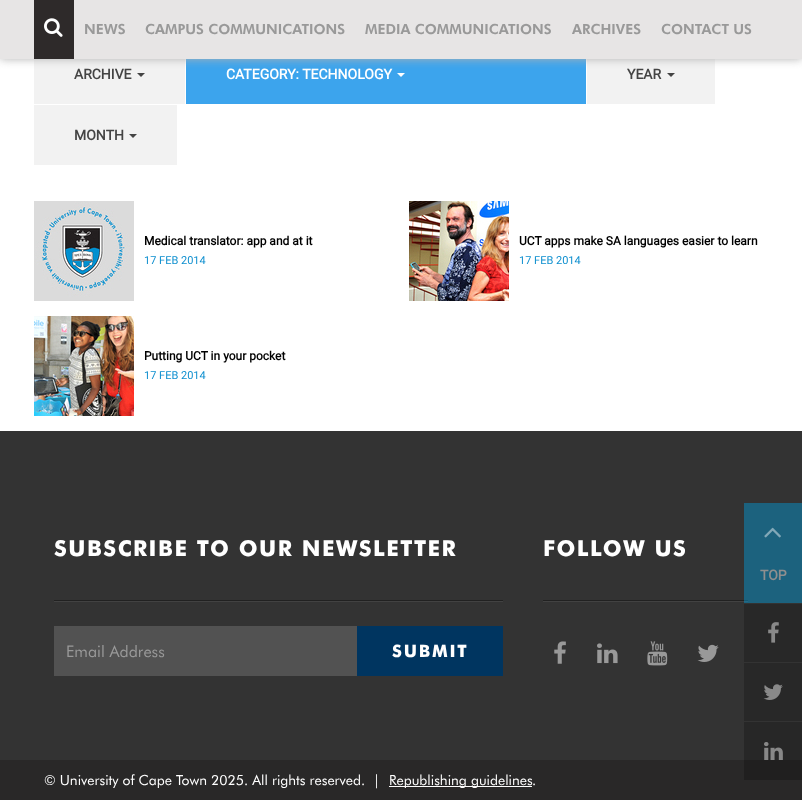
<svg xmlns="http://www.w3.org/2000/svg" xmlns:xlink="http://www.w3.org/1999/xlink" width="802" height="800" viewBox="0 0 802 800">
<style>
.cls-1{font:900 14px Futura;fill:#999999}
.cls-2{font:bold 14px Roboto;fill:#444444}
.cls-3{font:bold 14px Roboto;fill:#ffffff}
.cls-4{font:bold 12px Roboto;fill:#000000}
.cls-5{font:11px Roboto;fill:#0e8fcf}
.cls-6{font:bold 22px Futura;letter-spacing:1.5px;fill:#ffffff}
.cls-7{font:16px Futura;fill:#999999}
.cls-8{font:bold 17px Futura;letter-spacing:1.75px;fill:#ffffff}
.cls-9{font:14px Futura;fill:#ffffff}
.cls-10{font:bold 14px Roboto;fill:#8f8f8f}
</style>
<rect width="100%" height="100%" fill="#ffffff"/>
<rect fill="#f2f2f2" x="34" y="59" width="151" height="45"/>
<path fill="#444444" d="M137 73H145L141 77Z"/>
<rect fill="#3ca4ed" x="186" y="59" width="400" height="45"/>
<path fill="#ffffff" d="M397 73H405L401 77Z"/>
<rect fill="#f2f2f2" x="587" y="59" width="128" height="45"/>
<path fill="#444444" d="M667 73H675L671 77Z"/>
<rect fill="#b3b3b3" filter="blur(5px)" x="0" y="0" width="802" height="59"/>
<rect fill="#e7e5e5" x="0" y="0" width="802" height="59"/>
<rect fill="#2e2a2a" x="34" y="0" width="40" height="59"/>
<image xlink:href="image0.png" x="44" y="18" width="19" height="19"/>
<rect fill="#f2f2f2" x="34" y="105" width="143" height="60"/>
<path fill="#444444" d="M129 134H137L133 138Z"/>
<image xlink:href="image1.png" x="34" y="201" width="100" height="100"/>
<image xlink:href="image2.png" x="409" y="201" width="100" height="100"/>
<image xlink:href="image3.png" x="34" y="316" width="100" height="100"/>
<rect fill="#333333" x="0" y="431" width="802" height="329"/>
<rect fill="#272727" x="744" y="722" width="58" height="38"/>
<rect fill="#1c627e" x="744" y="503" width="58" height="100"/>
<rect fill="#212121" x="54" y="600" width="449" height="1"/>
<rect fill="#424242" x="54" y="601" width="449" height="1"/>
<rect fill="#525252" x="54" y="626" width="303" height="50"/>
<rect fill="#003560" x="357" y="626" width="146" height="50"/>
<rect fill="#212121" x="543" y="600" width="205" height="1"/>
<rect fill="#125874" x="744" y="600" width="4" height="1"/>
<rect fill="#424242" x="543" y="601" width="205" height="1"/>
<rect fill="#246a86" x="744" y="601" width="4" height="1"/>
<image xlink:href="image4.png" x="554" y="641" width="12" height="23"/>
<image xlink:href="image5.png" x="597" y="643" width="21" height="21"/>
<image xlink:href="image6.png" x="647" y="641" width="21" height="25"/>
<image xlink:href="image7.png" x="697" y="644" width="22" height="18"/>
<rect fill="#292828" x="0" y="760" width="802" height="40"/>
<rect fill="#201f1f" x="744" y="760" width="58" height="20"/>
<rect fill="#fefefe" x="389" y="786" width="143" height="1"/>
<image xlink:href="image8.png" x="764" y="527" width="17" height="11"/>
<rect fill="#282828" x="744" y="604" width="58" height="58"/>
<image xlink:href="image9.png" x="768" y="622" width="11" height="21"/>
<rect fill="#282828" x="744" y="663" width="58" height="58"/>
<image xlink:href="image10.png" x="763" y="684" width="20" height="16"/>
<image xlink:href="image11.png" x="764" y="742" width="19" height="18"/>
<text class="cls-1" x="84" y="34">NEWS</text>
<text class="cls-1" x="145" y="34">CAMPUS COMMUNICATIONS</text>
<text class="cls-1" x="365" y="34">MEDIA COMMUNICATIONS</text>
<text class="cls-1" x="572" y="34">ARCHIVES</text>
<text class="cls-1" x="661" y="34">CONTACT US</text>
<text class="cls-2" x="74" y="79">ARCHIVE</text>
<text class="cls-3" x="226" y="79">CATEGORY: TECHNOLOGY</text>
<text class="cls-2" x="627" y="79">YEAR</text>
<text class="cls-2" x="74" y="140">MONTH</text>
<text class="cls-4" x="144" y="245">Medical translator: app and at it</text>
<text class="cls-5" x="144" y="264">17 FEB 2014</text>
<text class="cls-4" x="519" y="245">UCT apps make SA languages easier to learn</text>
<text class="cls-5" x="519" y="264">17 FEB 2014</text>
<text class="cls-4" x="144" y="360">Putting UCT in your pocket</text>
<text class="cls-5" x="144" y="379">17 FEB 2014</text>
<text class="cls-6" x="54" y="556">SUBSCRIBE TO OUR NEWSLETTER</text>
<text class="cls-7" x="66" y="657">Email Address</text>
<text class="cls-8" x="392" y="657">SUBMIT</text>
<text class="cls-6" x="543" y="556">FOLLOW US</text>
<text class="cls-9" x="44" y="785">© University of Cape Town 2025. All rights reserved.</text>
<text class="cls-9" x="373" y="785">|</text>
<text class="cls-9" x="389" y="785">Republishing guidelines</text>
<text class="cls-9" x="532" y="785">.</text>
<text class="cls-10" x="760" y="580">TOP</text>
</svg>
